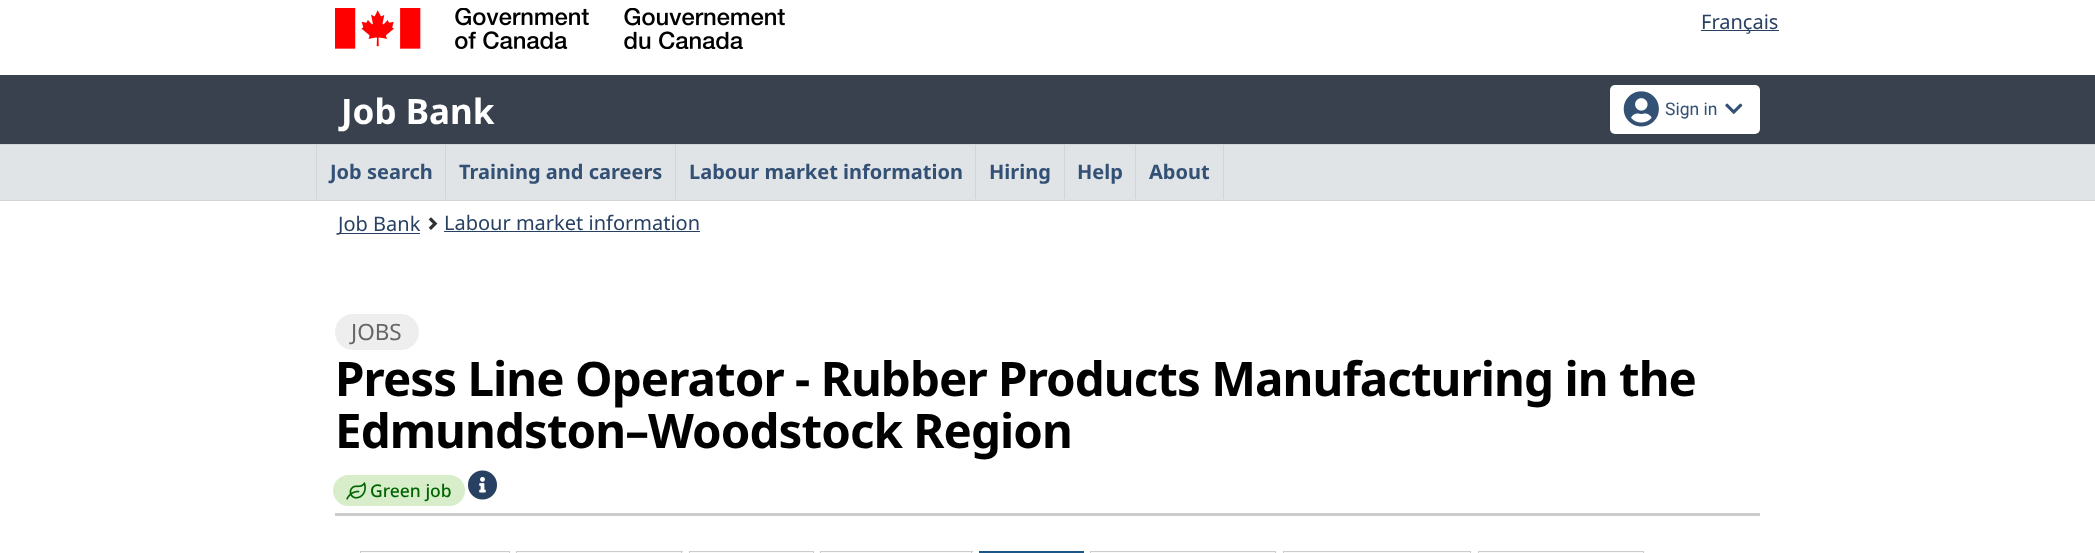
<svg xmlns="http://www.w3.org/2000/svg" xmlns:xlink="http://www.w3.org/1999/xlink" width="2095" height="553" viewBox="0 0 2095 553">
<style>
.cls-1{font:20px Noto Sans;fill:#284162}
.cls-2{font:bold 35px Noto Sans;fill:#ffffff}
.cls-3{font:17.5px Roboto;fill:#335075}
.cls-4{font:bold 20px Noto Sans;fill:#335075}
.cls-5{font:22.5px Noto Sans;fill:#666666}
.cls-6{font:bold 47.5px Noto Sans;letter-spacing:-0.95px;fill:#000000}
.cls-7{font:500 17.5px Noto Sans;fill:#006400}
</style>
<rect width="100%" height="100%" fill="#ffffff"/>
<image xlink:href="image0.png" x="335" y="8" width="450" height="41"/>
<rect fill="#284162" x="1701" y="30" width="78" height="1"/>
<rect fill="#38414d" x="0" y="75" width="2095" height="69"/>
<rect fill="#ffffff" x="1610" y="85" width="150" height="49" rx="5"/>
<image xlink:href="image1.png" x="1623" y="91" width="36" height="36"/>
<image xlink:href="image2.png" x="1725" y="103" width="18" height="11"/>
<rect fill="#e1e4e7" x="0" y="145" width="2095" height="55"/>
<rect fill="#d3d4d8" x="0" y="144" width="2095" height="1"/>
<rect fill="#d3d4d8" x="0" y="200" width="2095" height="1"/>
<rect fill="#d3d4d8" x="316" y="145" width="1" height="54"/>
<rect fill="#d3d4d8" x="445" y="145" width="1" height="54"/>
<rect fill="#d3d4d8" x="675" y="145" width="1" height="54"/>
<rect fill="#d3d4d8" x="975" y="145" width="1" height="54"/>
<rect fill="#d3d4d8" x="1064" y="145" width="1" height="54"/>
<rect fill="#d3d4d8" x="1223" y="145" width="1" height="54"/>
<rect fill="#d3d4d8" x="1135" y="145" width="1" height="54"/>
<rect fill="#284162" x="338" y="233" width="82" height="1"/>
<image xlink:href="image3.png" x="428" y="217" width="10" height="13"/>
<rect fill="#284162" x="444" y="231" width="256" height="1"/>
<rect fill="#cccccc" x="335" y="513" width="1425" height="3"/>
<rect fill="#eeeeee" x="335" y="314" width="84" height="36" rx="18"/>
<rect fill="#d8eeca" x="333" y="475" width="132" height="31" rx="15.5"/>
<image xlink:href="image4.png" x="346" y="482" width="20" height="18"/>
<image xlink:href="image5.png" x="468" y="470" width="29" height="30"/>
<rect fill="#f9f9f9" x="360" y="552" width="150" height="1"/>
<rect fill="#cccccc" x="360" y="551" width="150" height="1"/>
<rect fill="#cccccc" x="509" y="551" width="1" height="2"/>
<rect fill="#cccccc" x="360" y="551" width="1" height="2"/>
<rect fill="#f9f9f9" x="516" y="552" width="167" height="1"/>
<rect fill="#cccccc" x="516" y="551" width="167" height="1"/>
<rect fill="#cccccc" x="681" y="551" width="1" height="2"/>
<rect fill="#cccccc" x="516" y="551" width="1" height="2"/>
<rect fill="#f9f9f9" x="689" y="552" width="125" height="1"/>
<rect fill="#cccccc" x="689" y="551" width="125" height="1"/>
<rect fill="#cccccc" x="813" y="551" width="1" height="2"/>
<rect fill="#cccccc" x="689" y="551" width="1" height="2"/>
<rect fill="#f9f9f9" x="820" y="552" width="153" height="1"/>
<rect fill="#cccccc" x="820" y="551" width="153" height="1"/>
<rect fill="#cccccc" x="971" y="551" width="1" height="2"/>
<rect fill="#cccccc" x="820" y="551" width="1" height="2"/>
<rect fill="#1c5688" x="979" y="551" width="105" height="2"/>
<rect fill="#f9f9f9" x="1090" y="552" width="186" height="1"/>
<rect fill="#cccccc" x="1090" y="551" width="186" height="1"/>
<rect fill="#cccccc" x="1275" y="551" width="1" height="2"/>
<rect fill="#cccccc" x="1090" y="551" width="1" height="2"/>
<rect fill="#f9f9f9" x="1283" y="552" width="188" height="1"/>
<rect fill="#cccccc" x="1283" y="551" width="188" height="1"/>
<rect fill="#cccccc" x="1470" y="551" width="1" height="2"/>
<rect fill="#cccccc" x="1283" y="551" width="1" height="2"/>
<rect fill="#f9f9f9" x="1478" y="552" width="166" height="1"/>
<rect fill="#cccccc" x="1478" y="551" width="166" height="1"/>
<rect fill="#cccccc" x="1643" y="551" width="1" height="2"/>
<rect fill="#cccccc" x="1478" y="551" width="1" height="2"/>
<text class="cls-1" x="1701" y="29">Français</text>
<text class="cls-2" x="341" y="124">Job Bank</text>
<text class="cls-3" x="1665" y="115">Sign in</text>
<text class="cls-4" x="330" y="179">Job search</text>
<text class="cls-4" x="459" y="179">Training and careers</text>
<text class="cls-4" x="689" y="179">Labour market information</text>
<text class="cls-4" x="989" y="179">Hiring</text>
<text class="cls-4" x="1077" y="179">Help</text>
<text class="cls-4" x="1149" y="179">About</text>
<text class="cls-1" x="338" y="231">Job Bank</text>
<text class="cls-1" x="444" y="230">Labour market information</text>
<text class="cls-5" x="351" y="340">JOBS</text>
<text class="cls-6"><tspan x="335" y="396">Press Line Operator - Rubber Products Manufacturing in the</tspan><tspan x="335" y="448">Edmundston–Woodstock Region</tspan></text>
<text class="cls-7" x="370" y="497">Green job</text>
</svg>
